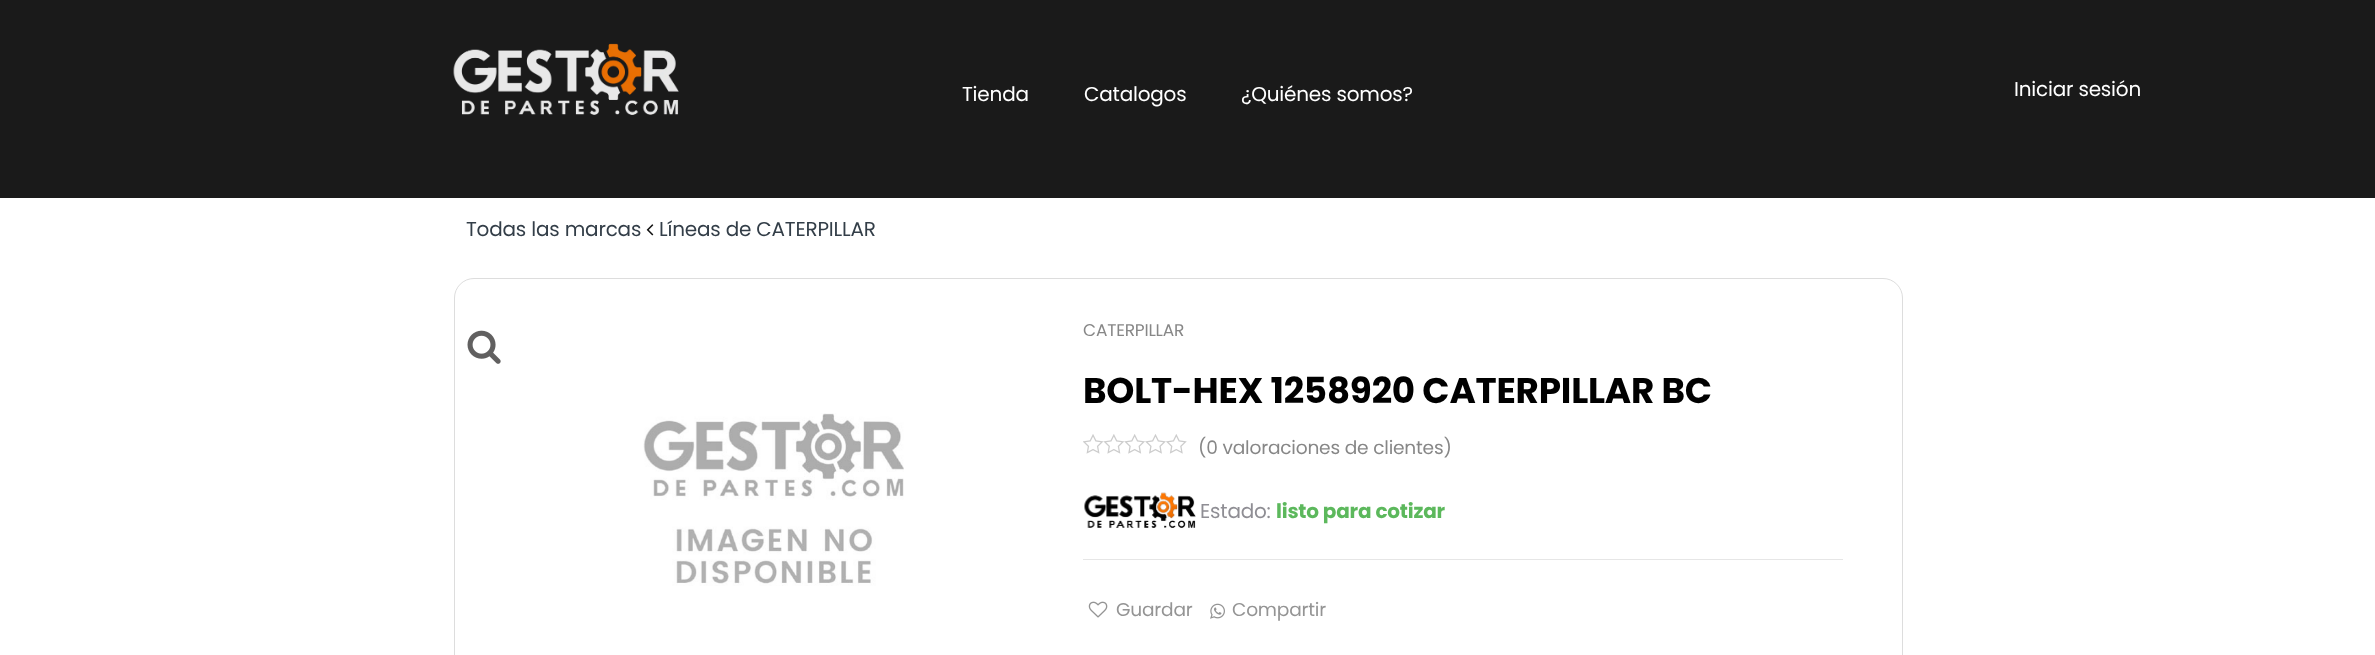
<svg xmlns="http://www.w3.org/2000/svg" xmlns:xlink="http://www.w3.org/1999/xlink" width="2375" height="655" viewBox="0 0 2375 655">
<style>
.cls-1{font:20px Poppins;letter-spacing:-0.2px;fill:#ffffff}
.cls-2{font:20px Poppins;letter-spacing:-0.2px;fill:#333e48}
.cls-3{font:17px Poppins;letter-spacing:-0.2px;fill:#878787}
.cls-4{font:bold 35.75px Poppins;letter-spacing:-0.2px;fill:#000000}
.cls-5{font:18.6px Poppins;letter-spacing:-0.2px;fill:#878787}
.cls-6{font:20px Poppins;letter-spacing:-0.2px;fill:#8f8e94}
.cls-7{font:bold 20px Poppins;letter-spacing:-0.2px;fill:#5cb85c}
.cls-8{font:18.6px Poppins;letter-spacing:-0.2px;fill:#949494}
</style>
<rect width="100%" height="100%" fill="#ffffff"/>
<rect fill="#1a1a1a" x="0" y="0" width="2375" height="198"/>
<image xlink:href="image0.png" x="453" y="43" width="226" height="72"/>
<image xlink:href="image1.png" x="646" y="224" width="8" height="12"/>
<rect fill="none" stroke="#dddddd" x="454.5" y="278.5" width="1448" height="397" rx="19.5"/>
<image xlink:href="image2.png" x="467" y="330" width="34" height="34"/>
<image xlink:href="image3.png" x="643" y="413" width="261" height="173"/>
<image xlink:href="image4.png" x="1083" y="434" width="104" height="20"/>
<image xlink:href="image5.png" x="1084" y="492" width="112" height="36"/>
<rect fill="#e6e6e6" x="1083" y="559" width="760" height="1"/>
<image xlink:href="image6.png" x="1088" y="601" width="20" height="17"/>
<image xlink:href="image7.png" x="1210" y="603" width="15" height="16"/>
<text class="cls-1" x="962" y="101">Tienda</text>
<text class="cls-1" x="1084" y="101">Catalogos</text>
<text class="cls-1" x="1241" y="101">¿Quiénes somos?</text>
<text class="cls-1" x="2014" y="96">Iniciar sesión</text>
<text class="cls-2" x="466" y="236">Todas las marcas</text>
<text class="cls-2" x="659" y="236">Líneas de CATERPILLAR</text>
<text class="cls-3" x="1083" y="336">CATERPILLAR</text>
<text class="cls-4" x="1083" y="403">BOLT-HEX 1258920 CATERPILLAR BC</text>
<text class="cls-5" x="1198" y="454">(0 valoraciones de clientes)</text>
<text class="cls-6" x="1200" y="518">Estado:</text>
<text class="cls-7" x="1276" y="518">listo para cotizar</text>
<text class="cls-8" x="1116" y="616">Guardar</text>
<text class="cls-8" x="1232" y="616">Compartir</text>
</svg>
